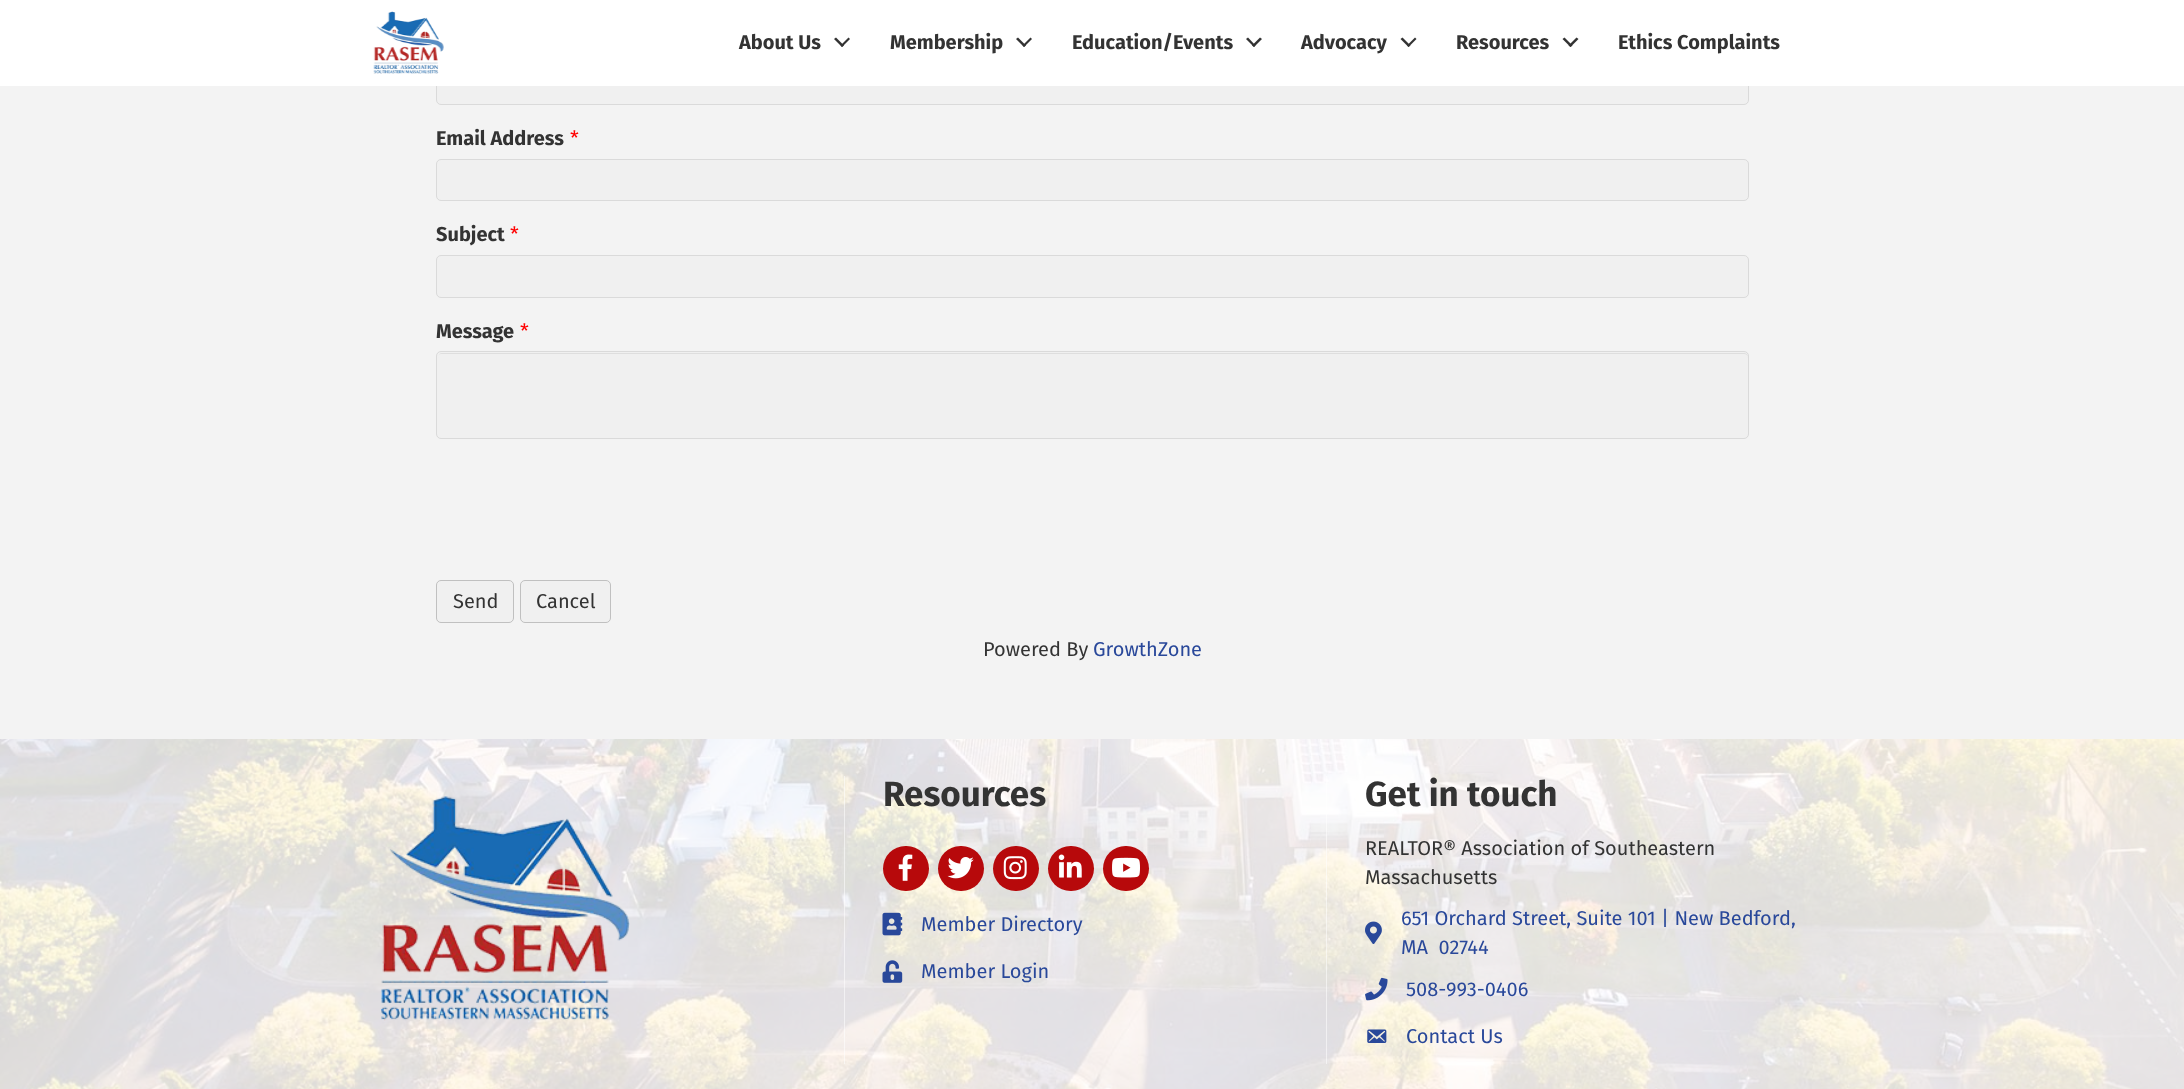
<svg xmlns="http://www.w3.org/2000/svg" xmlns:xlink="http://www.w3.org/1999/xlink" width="2184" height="1089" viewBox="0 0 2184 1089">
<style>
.cls-1{font:bold 20px Fira Sans;fill:#333333}
.cls-2{font:20px Fira Sans;fill:#ff0000}
.cls-3{font:20px Fira Sans;fill:#333333}
.cls-4{font:20px Fira Sans;fill:#29489a}
.cls-5{font:bold 35px Fira Sans;fill:#333333}
</style>
<rect width="100%" height="100%" fill="#f3f3f3"/>
<rect fill="#f0f0f0" stroke="#dadada" x="436.5" y="63.5" width="1312" height="41" rx="4.5"/>
<rect fill="#ffffff" x="0" y="0" width="2184" height="86"/>
<image xlink:href="image0.png" x="373" y="11" width="71" height="63"/>
<path fill="#333333" d="M848.5 37.5L850 39L842 47L840.5 45.5Z"/>
<path fill="#333333" d="M836 37.5L844 45.5L842 47L834 39Z"/>
<path fill="#333333" d="M1030.5 37.5L1032 39L1024 47L1022.5 45.5Z"/>
<path fill="#333333" d="M1018 37.5L1026 45.5L1024 47L1016 39Z"/>
<path fill="#333333" d="M1260 37.5L1262 39L1254 47L1252 45.5Z"/>
<path fill="#333333" d="M1248 37.5L1255.5 45.5L1254 47L1246 39Z"/>
<path fill="#333333" d="M1415 37.5L1416.5 39L1408.5 47L1407 45.5Z"/>
<path fill="#333333" d="M1402.5 37.5L1410.5 45.5L1408.5 47L1400.5 39Z"/>
<path fill="#333333" d="M1576.5 37.5L1578.5 39L1570.5 47L1568.5 45.5Z"/>
<path fill="#333333" d="M1564.5 37.5L1572.5 45.5L1570.5 47L1562.5 39Z"/>
<rect fill="#f0f0f0" stroke="#dadada" x="436.5" y="159.5" width="1312" height="41" rx="4.5"/>
<rect fill="#f0f0f0" stroke="#dadada" x="436.5" y="255.5" width="1312" height="42" rx="4.5"/>
<rect fill="#f0f0f0" x="436" y="351" width="1313" height="88" rx="5"/>
<path fill="#dedede" d="M441 354H1744C1746 354 1748 355 1748 358V357C1748 355 1746 353 1744 353H442C440 353 438 355 438 357V358C438 355 439 354 441 354Z"/>
<rect fill="none" stroke="#dadada" x="436.5" y="351.5" width="1312" height="87" rx="4.5"/>
<rect fill="#f0f0f0" stroke="#c0c0c0" x="436.5" y="580.5" width="77" height="42" rx="4.5"/>
<rect fill="#f0f0f0" stroke="#c0c0c0" x="520.5" y="580.5" width="90" height="42" rx="4.5"/>
<image xlink:href="image1.png" x="0" y="739" width="2184" height="350"/>
<image xlink:href="image2.png" x="381" y="796" width="249" height="225"/>
<rect fill="#ffffff" fill-opacity="0.54" x="844" y="776" width="1" height="288"/>
<rect fill="#b7090b" x="883" y="846" width="46" height="45" rx="22.5"/>
<image xlink:href="image3.png" x="898" y="854" width="15" height="27"/>
<rect fill="#b7090b" x="938" y="846" width="46" height="45" rx="22.5"/>
<image xlink:href="image4.png" x="947" y="857" width="27" height="22"/>
<rect fill="#b7090b" x="993" y="846" width="46" height="45" rx="22.5"/>
<image xlink:href="image5.png" x="1003" y="856" width="24" height="24"/>
<rect fill="#b7090b" x="1048" y="846" width="46" height="45" rx="22.5"/>
<image xlink:href="image6.png" x="1058" y="854" width="24" height="24"/>
<rect fill="#b7090b" x="1103" y="846" width="46" height="45" rx="22.5"/>
<image xlink:href="image7.png" x="1112" y="857" width="28" height="21"/>
<image xlink:href="image8.png" x="882" y="912" width="21" height="24"/>
<image xlink:href="image9.png" x="882" y="960" width="21" height="23"/>
<rect fill="#ffffff" fill-opacity="0.54" x="1326" y="776" width="1" height="288"/>
<image xlink:href="image10.png" x="1365" y="921" width="17" height="23"/>
<image xlink:href="image11.png" x="1365" y="977" width="23" height="24"/>
<image xlink:href="image12.png" x="1367" y="1029" width="20" height="14"/>
<text class="cls-1" x="739" y="49">About Us</text>
<text class="cls-1" x="890" y="49">Membership</text>
<text class="cls-1" x="1072" y="49">Education/Events</text>
<text class="cls-1" x="1301" y="49">Advocacy</text>
<text class="cls-1" x="1456" y="49">Resources</text>
<text class="cls-1" x="1618" y="49">Ethics Complaints</text>
<text class="cls-1" x="436" y="145">Email Address</text>
<text class="cls-2" x="570" y="145">*</text>
<text class="cls-1" x="436" y="241">Subject</text>
<text class="cls-2" x="510" y="241">*</text>
<text class="cls-1" x="436" y="338">Message</text>
<text class="cls-2" x="520" y="338">*</text>
<text class="cls-3" x="453" y="608">Send</text>
<text class="cls-3" x="536" y="608">Cancel</text>
<text class="cls-3" x="983" y="656">Powered By</text>
<text class="cls-4" x="1093" y="656">GrowthZone</text>
<text class="cls-5" x="883" y="806">Resources</text>
<text class="cls-4" x="921" y="931">Member Directory</text>
<text class="cls-4" x="921" y="978">Member Login</text>
<text class="cls-5" x="1365" y="806">Get in touch</text>
<text class="cls-3"><tspan x="1365" y="855">REALTOR® Association of Southeastern</tspan><tspan x="1365" y="884">Massachusetts</tspan></text>
<text class="cls-4" xml:space="preserve"><tspan x="1401" y="925">651 Orchard Street, Suite 101 | New Bedford,</tspan><tspan x="1401" y="954">MA  02744</tspan></text>
<text class="cls-4" x="1406" y="996">508-993-0406</text>
<text class="cls-4" x="1406" y="1043">Contact Us</text>
</svg>
